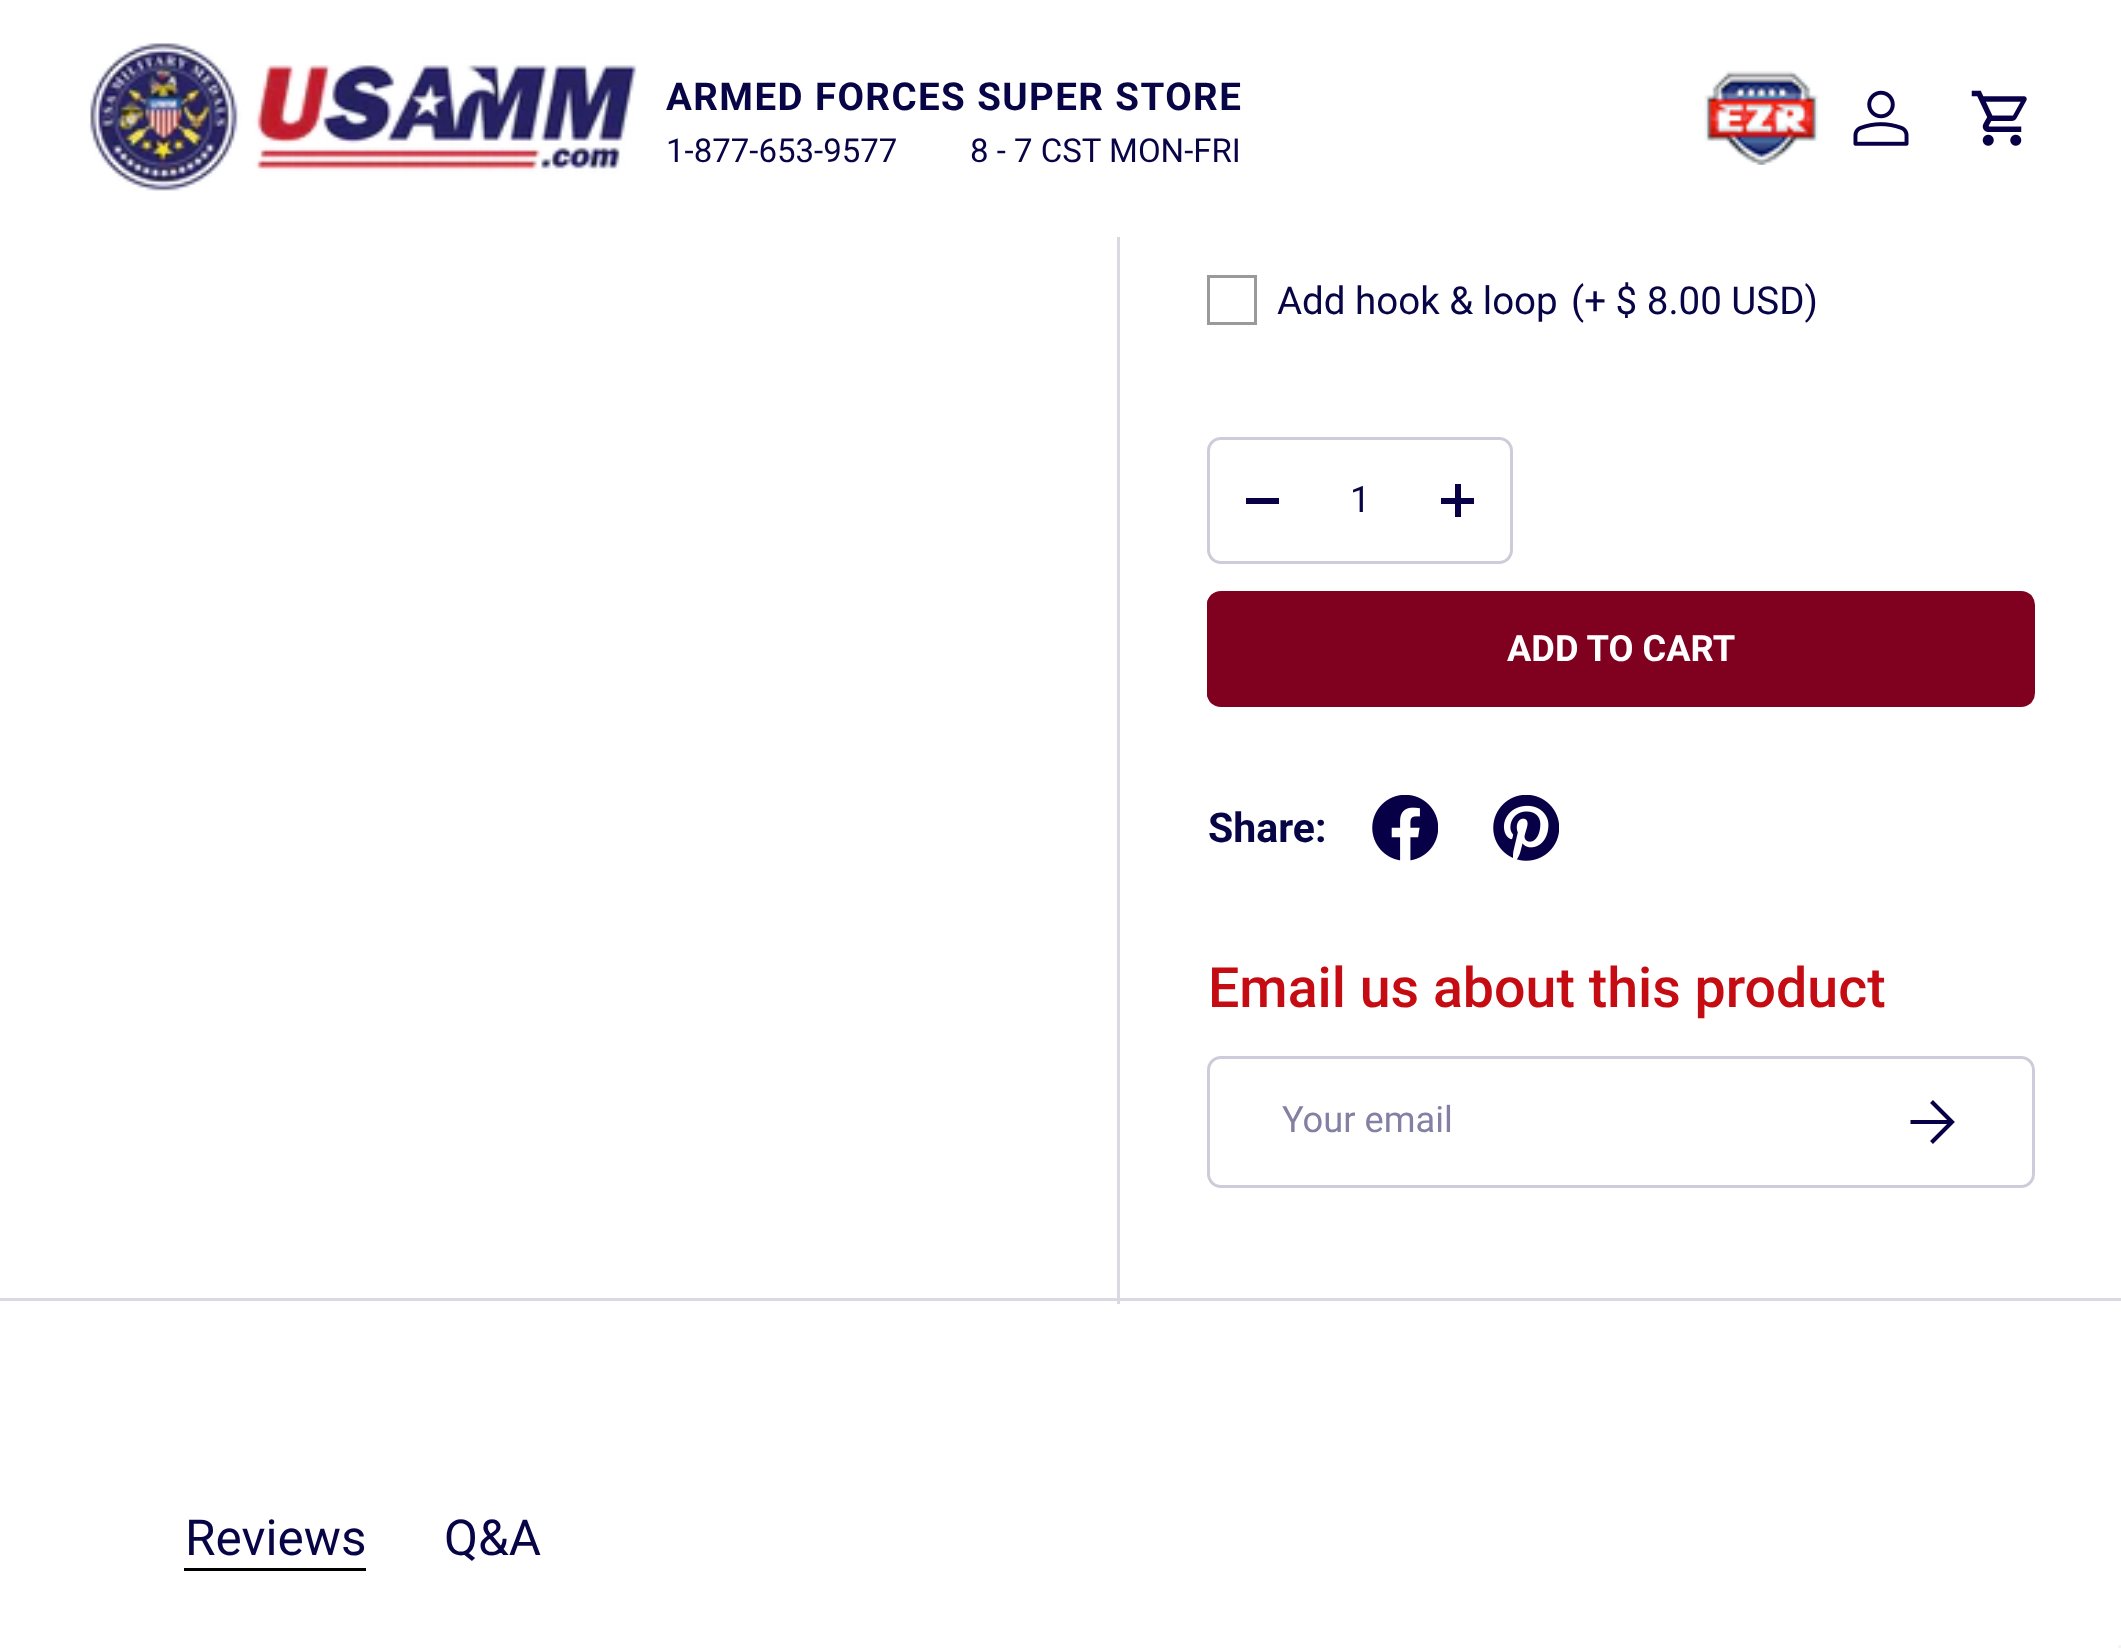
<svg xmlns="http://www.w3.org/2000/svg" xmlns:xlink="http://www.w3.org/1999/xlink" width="2121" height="1648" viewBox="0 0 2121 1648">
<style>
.cls-1{font:bold 38.5px Roboto;letter-spacing:1.4px;fill:#080547}
.cls-2{font:33px Roboto;fill:#080547}
.cls-3{font:38.5px Roboto;fill:#080547}
.cls-4{font:36.25px Roboto;fill:#080547}
.cls-5{font:bold 36.25px Roboto;fill:#ffffff}
.cls-6{font:bold 41px Roboto;fill:#080547}
.cls-7{font:500 55.5px Roboto;fill:#c50c13}
.cls-8{font:36.25px Roboto;fill:#8480a3}
.cls-9{font:49.5px Roboto;fill:#080547}
</style>
<defs>
<clipPath id="clip1"><rect x="1207" y="591" width="828" height="116" rx="14"/></clipPath>
<linearGradient id="g1" gradientUnits="userSpaceOnUse" x1="-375" y1="356" x2="1973" y2="942"><stop offset="0.6" stop-color="#9f2946"/><stop offset="0.6" stop-color="#800020"/><stop offset="1" stop-color="#800020"/></linearGradient>
</defs>
<rect width="100%" height="100%" fill="#ffffff"/>
<image xlink:href="image0.png" x="88" y="43" width="550" height="149"/>
<image xlink:href="image1.png" x="1704" y="70" width="114" height="95"/>
<image xlink:href="image2.png" x="1853" y="90" width="56" height="56"/>
<image xlink:href="image3.png" x="1971" y="90" width="56" height="56"/>
<rect fill="#dad9e3" x="0" y="1298" width="2121" height="3"/>
<rect fill="#dad9e3" x="1117" y="237" width="3" height="1067"/>
<rect fill="none" stroke="#9a9a9a" stroke-width="3" x="1208.5" y="276.5" width="47" height="47"/>
<rect fill="none" stroke="#ceccda" stroke-width="3" x="1208.5" y="438.5" width="303" height="124" rx="12.5"/>
<rect fill="#080047" x="1246" y="498" width="33" height="6"/>
<rect fill="#080047" x="1441" y="498" width="33" height="6"/>
<rect fill="#080047" x="1455" y="484" width="6" height="33"/>
<g clip-path="url(#clip1)">
<rect fill="url(#g1)" x="1207" y="594" width="825" height="110"/>
</g>
<rect fill="none" stroke="#800020" stroke-width="3" x="1208.5" y="592.5" width="825" height="113" rx="12.5"/>
<image xlink:href="image4.png" x="1372" y="795" width="66" height="66"/>
<image xlink:href="image5.png" x="1493" y="795" width="66" height="66"/>
<rect fill="none" stroke="#ceccda" stroke-width="3" x="1208.5" y="1057.5" width="825" height="129" rx="12.5"/>
<path fill="none" stroke="#080047" stroke-width="4.1" d="M1910.5 1122H1951M1931.5 1101.5L1952 1122L1931.5 1142.5"/>
<rect fill="#000000" x="184" y="1568" width="182" height="3"/>
<rect fill="#f5f5f5" x="2118" y="1645" width="3" height="3"/>
<text class="cls-1" x="666" y="110">ARMED FORCES SUPER STORE</text>
<text class="cls-2" x="666" y="162">1-877-653-9577</text>
<text class="cls-2" x="970" y="162">8 - 7 CST MON-FRI</text>
<text class="cls-3" x="1277" y="314">Add hook &amp; loop</text>
<text class="cls-3" x="1571" y="314">(+ $ 8.00 USD)</text>
<text class="cls-4" x="1350" y="512">1</text>
<text class="cls-5" x="1507" y="661">ADD TO CART</text>
<text class="cls-6" x="1208" y="842">Share:</text>
<text class="cls-7" x="1208" y="1007">Email us about this product</text>
<text class="cls-8" x="1282" y="1132">Your email</text>
<text class="cls-9" x="185" y="1555">Reviews</text>
<text class="cls-9" x="444" y="1555">Q&amp;A</text>
</svg>
